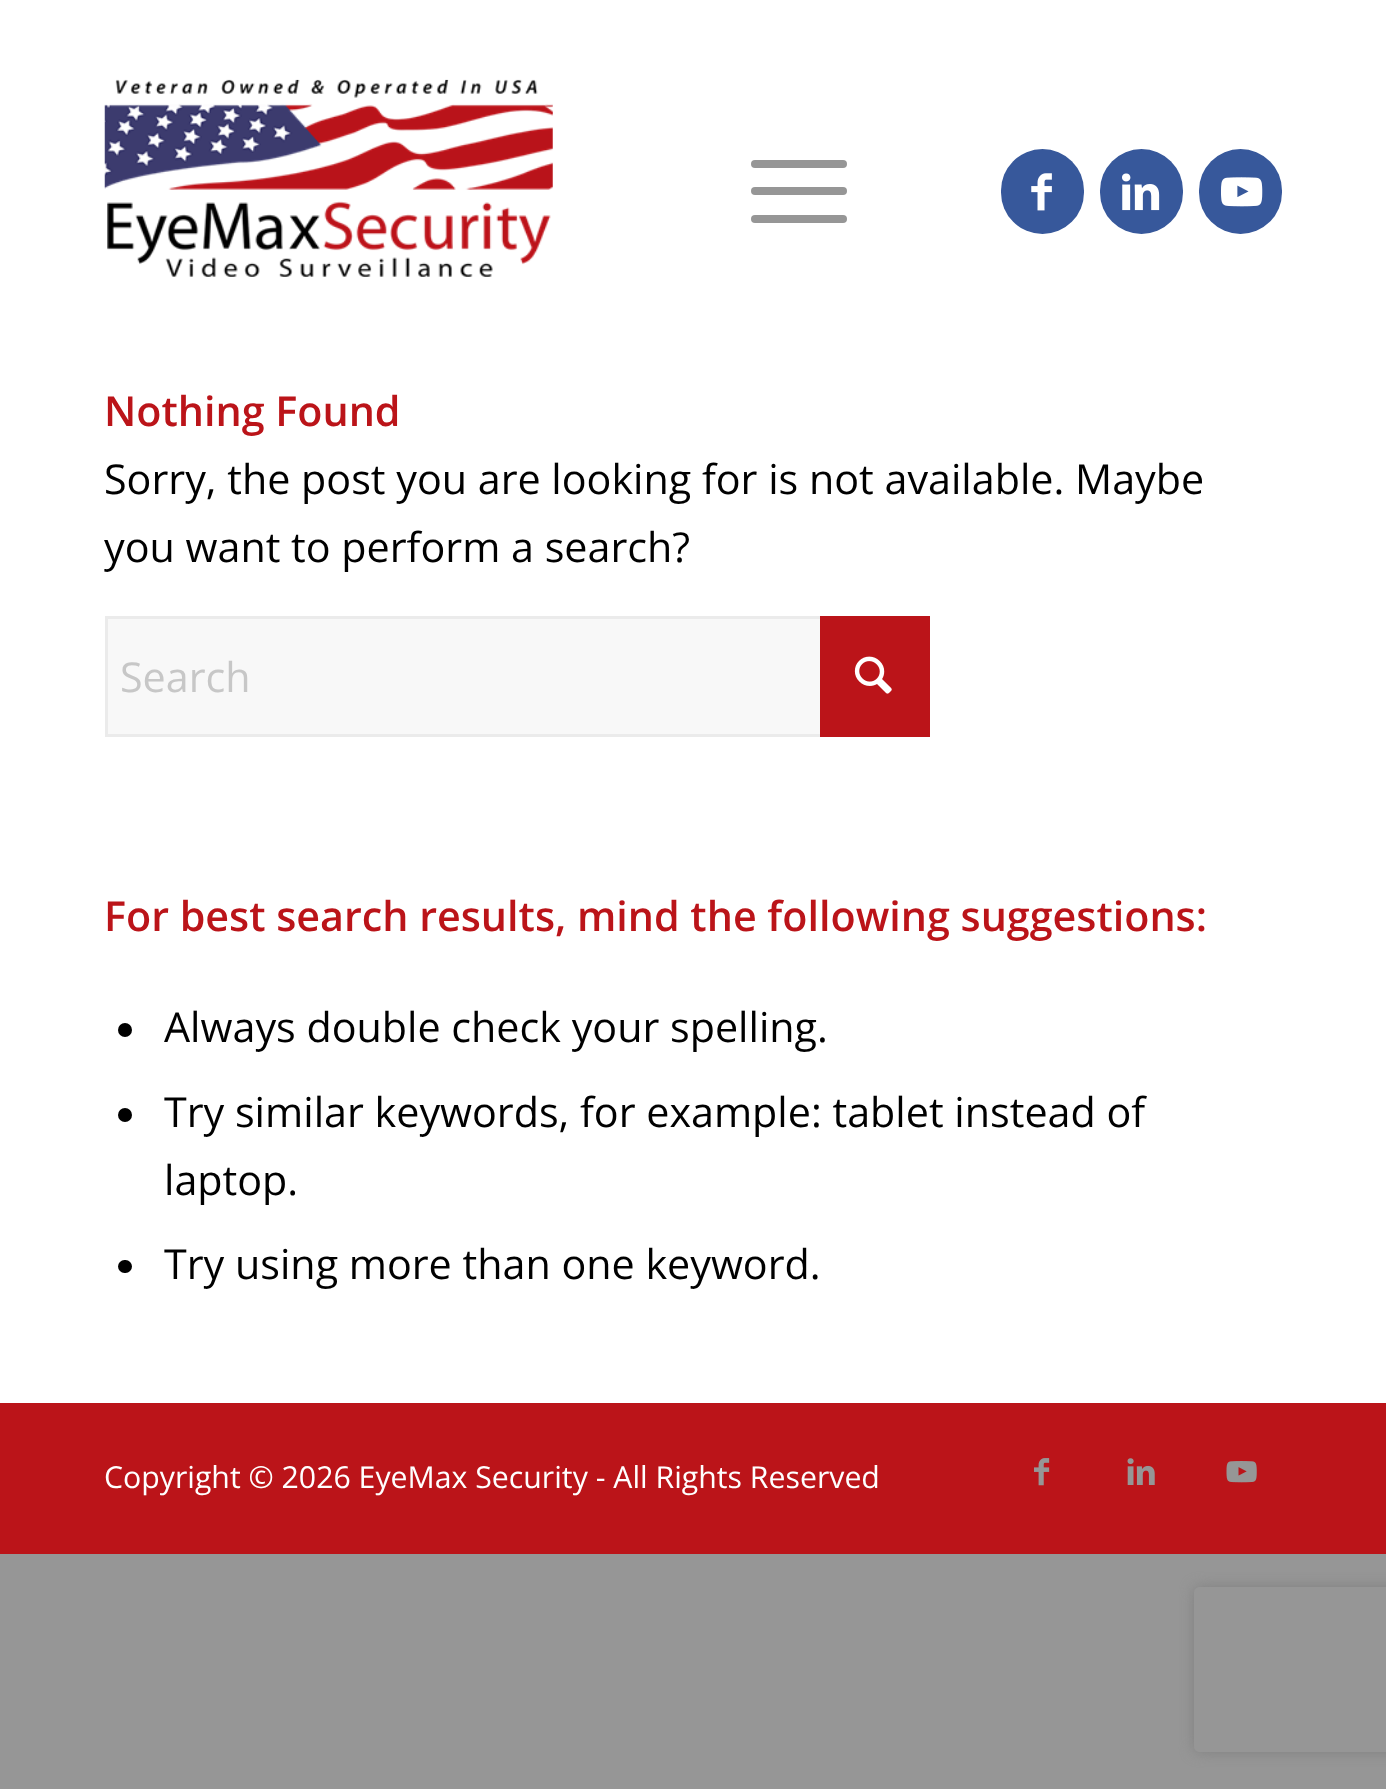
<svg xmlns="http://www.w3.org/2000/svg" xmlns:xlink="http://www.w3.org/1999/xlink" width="1386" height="1789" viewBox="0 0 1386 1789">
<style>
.cls-1{font:600 41.25px Open Sans;fill:#bb1419}
.cls-2{font:41.25px Open Sans;fill:#000000}
.cls-3{font:41.25px Open Sans;fill:#c7c7c7}
.cls-4{font:30.25px Open Sans;fill:#ffffff}
</style>
<defs>
<clipPath id="clip1"><path d="M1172 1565H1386V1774H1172ZM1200 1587H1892C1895.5 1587 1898 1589.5 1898 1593V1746C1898 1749.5 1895.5 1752 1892 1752H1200C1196.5 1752 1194 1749.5 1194 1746V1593C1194 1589.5 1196.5 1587 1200 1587Z" clip-rule="evenodd"/></clipPath>
</defs>
<rect width="100%" height="100%" fill="#969696"/>
<rect fill="#ffffff" x="0" y="0" width="1386" height="1403"/>
<image xlink:href="image0.png" x="104" y="79" width="449" height="198"/>
<rect fill="#969696" x="751" y="187" width="96" height="8" rx="4"/>
<rect fill="#969696" x="751" y="160" width="96" height="8" rx="4"/>
<rect fill="#969696" x="751" y="215" width="96" height="8" rx="4"/>
<rect fill="#37589b" x="1001" y="149" width="83" height="85" rx="41.5"/>
<image xlink:href="image1.png" x="1031" y="173" width="21" height="38"/>
<rect fill="#37589b" x="1100" y="149" width="83" height="85" rx="41.5"/>
<image xlink:href="image2.png" x="1122" y="173" width="38" height="38"/>
<rect fill="#37589b" x="1199" y="149" width="83" height="85" rx="41.5"/>
<image xlink:href="image3.png" x="1221" y="177" width="42" height="30"/>
<rect fill="#f8f8f8" x="108" y="619" width="712" height="115"/>
<rect fill="none" stroke="#ebebeb" stroke-width="3" x="106.5" y="617.5" width="822" height="118"/>
<rect fill="#bb1419" x="820" y="616" width="110" height="121"/>
<image xlink:href="image4.png" x="854" y="656" width="38" height="38"/>
<circle fill="#000000" cx="125" cy="1030" r="7"/>
<circle fill="#000000" cx="125" cy="1115" r="7"/>
<rect fill="#000000" x="118" y="1260" width="14" height="13" rx="6.5"/>
<rect fill="#bb1419" x="0" y="1403" width="1386" height="151"/>
<image xlink:href="image5.png" x="1034" y="1458" width="16" height="28"/>
<image xlink:href="image6.png" x="1127" y="1458" width="28" height="27"/>
<image xlink:href="image7.png" x="1226" y="1461" width="31" height="22"/>
<g clip-path="url(#clip1)">
<rect fill="#808080" filter="blur(7px)" x="1194" y="1587" width="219" height="165" rx="6"/>
</g>
<text class="cls-1" x="104" y="426">Nothing Found</text>
<text class="cls-2"><tspan x="104" y="494">Sorry, the post you are looking for is not available. Maybe</tspan><tspan x="104" y="562">you want to perform a search?</tspan></text>
<text class="cls-3" x="120" y="692">Search</text>
<text class="cls-1" x="104" y="931">For best search results, mind the following suggestions:</text>
<text class="cls-2" x="164" y="1042">Always double check your spelling.</text>
<text class="cls-2"><tspan x="164" y="1127">Try similar keywords, for example: tablet instead of</tspan><tspan x="164" y="1195">laptop.</tspan></text>
<text class="cls-2" x="164" y="1279">Try using more than one keyword.</text>
<text class="cls-4" x="104" y="1488">Copyright © 2026 EyeMax Security - All Rights Reserved</text>
</svg>
